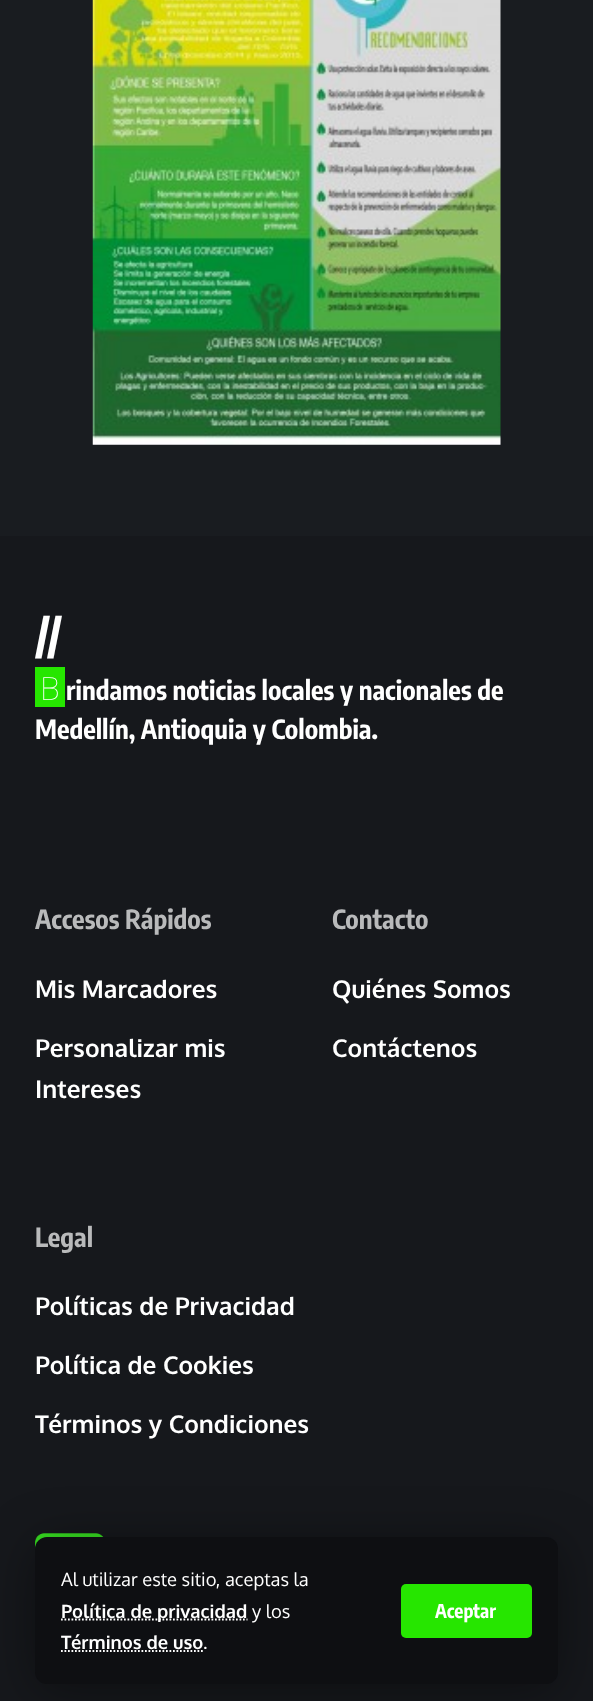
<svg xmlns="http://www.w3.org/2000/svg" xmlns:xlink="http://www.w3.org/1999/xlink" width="593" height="1701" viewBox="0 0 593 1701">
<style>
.cls-1{font:bold 46px Encode Sans Condensed;fill:#ffffff}
.cls-2{font:100 32px Noto Sans;fill:#ffffff}
.cls-3{font:bold 26.25px Encode Sans Condensed;fill:#ffffff}
.cls-4{font:bold 26.25px Encode Sans Condensed;fill:#b9babb}
.cls-5{font:bold 24.5px Oxygen;fill:#ffffff}
.cls-6{font:18.4px Oxygen;fill:#ffffff}
.cls-7{font:bold 18.4px Oxygen;fill:#ffffff}
.cls-8{font:bold 19px Encode Sans Condensed;fill:#ffffff}
</style>
<rect width="100%" height="100%" fill="#191c20"/>
<image xlink:href="image0.png" x="92" y="0" width="409" height="445"/>
<rect fill="#16181c" x="0" y="536" width="593" height="1165"/>
<rect fill="#26e600" x="35" y="667" width="30" height="40"/>
<image xlink:href="image1.png" x="35" y="1533" width="69" height="16"/>
<rect fill="#000000" fill-opacity="0.4" filter="blur(26px)" x="35" y="1544" width="523" height="147" rx="12"/>
<rect fill="#0e0f12" x="35" y="1537" width="523" height="147" rx="12"/>
<path fill="none" stroke="#ffffff" stroke-width="1.8" stroke-dasharray="1.75 1.75" d="M61 1619.5H247.5"/>
<path fill="none" stroke="#ffffff" stroke-width="1.8" stroke-dasharray="1.75 1.75" d="M61 1651H203.5"/>
<rect fill="#26e600" x="401" y="1584" width="131" height="54" rx="5"/>
<text class="cls-1" x="35" y="653">//</text>
<text class="cls-2" x="40" y="700">B</text>
<text class="cls-3" x="66" y="700">rindamos noticias locales y nacionales de</text>
<text class="cls-3" x="35" y="739">Medellín, Antioquia y Colombia.</text>
<text class="cls-4" x="35" y="929">Accesos Rápidos</text>
<text class="cls-5" x="35" y="998">Mis Marcadores</text>
<text class="cls-5"><tspan x="35" y="1057">Personalizar mis</tspan><tspan x="35" y="1098">Intereses</tspan></text>
<text class="cls-4" x="332" y="929">Contacto</text>
<text class="cls-5" x="332" y="998">Quiénes Somos</text>
<text class="cls-5" x="332" y="1057">Contáctenos</text>
<text class="cls-4" x="35" y="1247">Legal</text>
<text class="cls-5" x="35" y="1315">Políticas de Privacidad</text>
<text class="cls-5" x="35" y="1374">Política de Cookies</text>
<text class="cls-5" x="35" y="1433">Términos y Condiciones</text>
<text class="cls-6" x="61" y="1586">Al utilizar este sitio, aceptas la</text>
<text class="cls-7" x="61" y="1618">Política de privacidad</text>
<text class="cls-6" x="252" y="1618">y los</text>
<text class="cls-7" x="61" y="1649">Términos de uso</text>
<text class="cls-6" x="203" y="1649">.</text>
<text class="cls-8" x="435" y="1618">Aceptar</text>
</svg>
